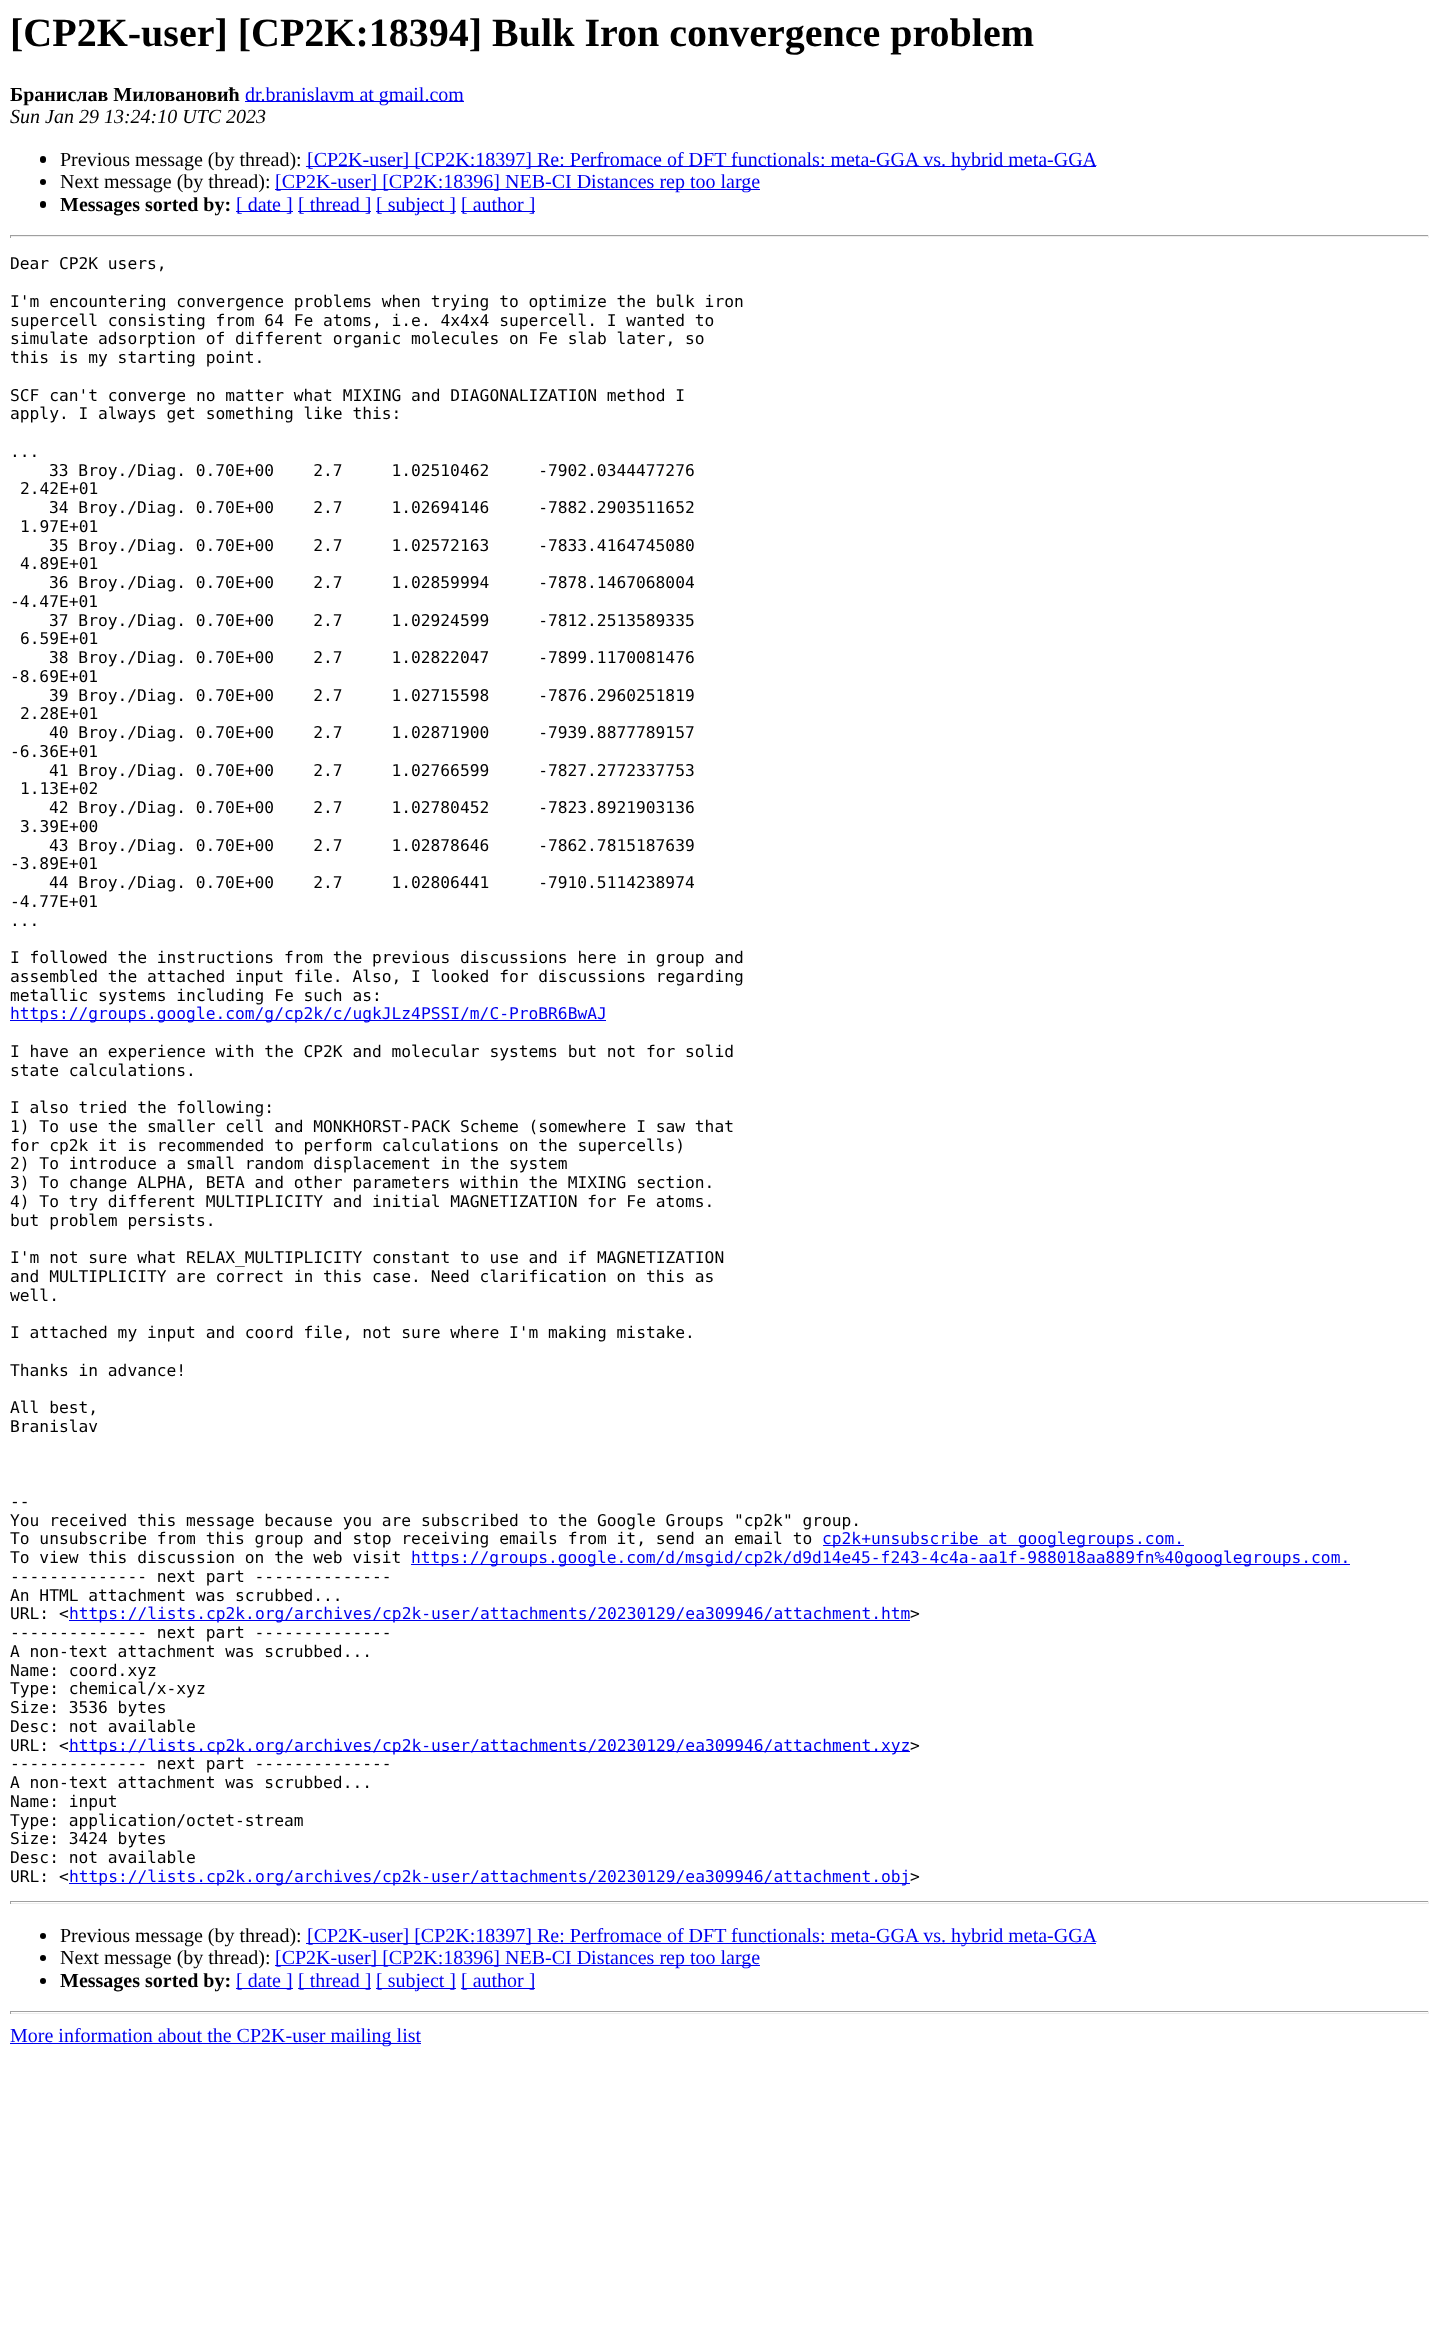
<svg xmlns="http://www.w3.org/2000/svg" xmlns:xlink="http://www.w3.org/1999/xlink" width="1438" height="2347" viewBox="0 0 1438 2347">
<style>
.cls-1{font:bold 40px Liberation Serif;fill:#000000}
.cls-2{font:bold 20px Liberation Serif;fill:#000000}
.cls-3{font:20px Liberation Serif;fill:#0000ee}
.cls-4{font:italic 20px Liberation Serif;fill:#000000}
.cls-5{font:20px Liberation Serif;fill:#000000}
.cls-6{font:16.25px DejaVu Sans Mono;fill:#000000}
.cls-7{font:16.25px DejaVu Sans Mono;fill:#0000ee}
</style>
<rect width="100%" height="100%" fill="#ffffff"/>
<rect fill="#0000ee" x="245" y="101" width="219" height="1"/>
<rect fill="#000000" x="40" y="156" width="6" height="7" rx="3"/>
<rect fill="#0000ee" x="306" y="166" width="790" height="1"/>
<circle fill="#000000" cx="43" cy="182" r="3"/>
<rect fill="#0000ee" x="275" y="189" width="485" height="1"/>
<rect fill="#000000" x="40" y="201" width="6" height="7" rx="3"/>
<rect fill="#0000ee" x="236" y="211" width="57" height="1"/>
<rect fill="#0000ee" x="298" y="211" width="73" height="1"/>
<rect fill="#0000ee" x="376" y="211" width="80" height="1"/>
<rect fill="#0000ee" x="461" y="211" width="74" height="1"/>
<rect fill="#9f9f9f" x="10" y="235" width="1419" height="1"/>
<rect fill="#eeeeee" x="1428" y="235" width="1" height="3"/>
<rect fill="#eeeeee" x="10" y="236" width="1419" height="1"/>
<rect fill="#9f9f9f" x="10" y="235" width="1" height="3"/>
<rect fill="#0000ee" x="10" y="1020" width="596" height="1"/>
<rect fill="#0000ee" x="823" y="1545" width="361" height="1"/>
<rect fill="#0000ee" x="411" y="1564" width="939" height="1"/>
<rect fill="#0000ee" x="69" y="1620" width="841" height="1"/>
<rect fill="#0000ee" x="69" y="1751" width="841" height="1"/>
<rect fill="#0000ee" x="69" y="1883" width="841" height="1"/>
<rect fill="#9f9f9f" x="10" y="1901" width="1419" height="1"/>
<rect fill="#eeeeee" x="1428" y="1901" width="1" height="3"/>
<rect fill="#eeeeee" x="10" y="1903" width="1419" height="1"/>
<rect fill="#9f9f9f" x="10" y="1901" width="1" height="3"/>
<circle fill="#000000" cx="43" cy="1936" r="3"/>
<rect fill="#0000ee" x="306" y="1943" width="790" height="1"/>
<circle fill="#000000" cx="43" cy="1958" r="3"/>
<rect fill="#0000ee" x="275" y="1965" width="485" height="1"/>
<circle fill="#000000" cx="43" cy="1981" r="3"/>
<rect fill="#0000ee" x="236" y="1988" width="57" height="1"/>
<rect fill="#0000ee" x="298" y="1988" width="73" height="1"/>
<rect fill="#0000ee" x="376" y="1988" width="80" height="1"/>
<rect fill="#0000ee" x="461" y="1988" width="74" height="1"/>
<rect fill="#9f9f9f" x="10" y="2011" width="1419" height="1"/>
<rect fill="#eeeeee" x="1428" y="2011" width="1" height="3"/>
<rect fill="#eeeeee" x="10" y="2013" width="1419" height="1"/>
<rect fill="#9f9f9f" x="10" y="2011" width="1" height="3"/>
<rect fill="#0000ee" x="10" y="2043" width="411" height="1"/>
<text class="cls-1" x="10" y="46">[CP2K-user] [CP2K:18394] Bulk Iron convergence problem</text>
<text class="cls-2" x="10" y="101">Бранислав Миловановић</text>
<text class="cls-3" x="245" y="101">dr.branislavm at gmail.com</text>
<text class="cls-4" x="10" y="123">Sun Jan 29 13:24:10 UTC 2023</text>
<text class="cls-5" x="60" y="166">Previous message (by thread):</text>
<text class="cls-3" x="307" y="166">[CP2K-user] [CP2K:18397] Re: Perfromace of DFT functionals: meta-GGA vs. hybrid meta-GGA</text>
<text class="cls-5" x="60" y="188">Next message (by thread):</text>
<text class="cls-3" x="275" y="188">[CP2K-user] [CP2K:18396] NEB-CI Distances rep too large</text>
<text class="cls-2" x="60" y="211">Messages sorted by:</text>
<text class="cls-3" x="236" y="211">[ date ]</text>
<text class="cls-3" x="298" y="211">[ thread ]</text>
<text class="cls-3" x="376" y="211">[ subject ]</text>
<text class="cls-3" x="461" y="211">[ author ]</text>
<text class="cls-6" x="10" y="269">Dear CP2K users,</text>
<text class="cls-6"><tspan x="10" y="307">I'm encountering convergence problems when trying to optimize the bulk iron</tspan><tspan x="10" y="326">supercell consisting from 64 Fe atoms, i.e. 4x4x4 supercell. I wanted to</tspan><tspan x="10" y="344">simulate adsorption of different organic molecules on Fe slab later, so</tspan><tspan x="10" y="363">this is my starting point.</tspan></text>
<text class="cls-6"><tspan x="10" y="401">SCF can't converge no matter what MIXING and DIAGONALIZATION method I</tspan><tspan x="10" y="419">apply. I always get something like this:</tspan></text>
<text class="cls-6" x="10" y="457">...</text>
<text class="cls-6" xml:space="preserve" x="49" y="476">33 Broy./Diag. 0.70E+00    2.7     1.02510462     -7902.0344477276</text>
<text class="cls-6" x="20" y="494">2.42E+01</text>
<text class="cls-6" xml:space="preserve" x="49" y="513">34 Broy./Diag. 0.70E+00    2.7     1.02694146     -7882.2903511652</text>
<text class="cls-6" x="20" y="532">1.97E+01</text>
<text class="cls-6" xml:space="preserve" x="49" y="551">35 Broy./Diag. 0.70E+00    2.7     1.02572163     -7833.4164745080</text>
<text class="cls-6" x="20" y="569">4.89E+01</text>
<text class="cls-6" xml:space="preserve" x="49" y="588">36 Broy./Diag. 0.70E+00    2.7     1.02859994     -7878.1467068004</text>
<text class="cls-6" x="10" y="607">-4.47E+01</text>
<text class="cls-6" xml:space="preserve" x="49" y="626">37 Broy./Diag. 0.70E+00    2.7     1.02924599     -7812.2513589335</text>
<text class="cls-6" x="20" y="644">6.59E+01</text>
<text class="cls-6" xml:space="preserve" x="49" y="663">38 Broy./Diag. 0.70E+00    2.7     1.02822047     -7899.1170081476</text>
<text class="cls-6" x="10" y="682">-8.69E+01</text>
<text class="cls-6" xml:space="preserve" x="49" y="701">39 Broy./Diag. 0.70E+00    2.7     1.02715598     -7876.2960251819</text>
<text class="cls-6" x="20" y="719">2.28E+01</text>
<text class="cls-6" xml:space="preserve" x="49" y="738">40 Broy./Diag. 0.70E+00    2.7     1.02871900     -7939.8877789157</text>
<text class="cls-6" x="10" y="757">-6.36E+01</text>
<text class="cls-6" xml:space="preserve" x="49" y="776">41 Broy./Diag. 0.70E+00    2.7     1.02766599     -7827.2772337753</text>
<text class="cls-6" x="20" y="794">1.13E+02</text>
<text class="cls-6" xml:space="preserve" x="49" y="813">42 Broy./Diag. 0.70E+00    2.7     1.02780452     -7823.8921903136</text>
<text class="cls-6" x="20" y="832">3.39E+00</text>
<text class="cls-6" xml:space="preserve" x="49" y="851">43 Broy./Diag. 0.70E+00    2.7     1.02878646     -7862.7815187639</text>
<text class="cls-6" x="10" y="869">-3.89E+01</text>
<text class="cls-6" xml:space="preserve" x="49" y="888">44 Broy./Diag. 0.70E+00    2.7     1.02806441     -7910.5114238974</text>
<text class="cls-6"><tspan x="10" y="907">-4.77E+01</tspan><tspan x="10" y="926">...</tspan></text>
<text class="cls-6"><tspan x="10" y="963">I followed the instructions from the previous discussions here in group and</tspan><tspan x="10" y="982">assembled the attached input file. Also, I looked for discussions regarding</tspan><tspan x="10" y="1001">metallic systems including Fe such as:</tspan></text>
<text class="cls-7" x="10" y="1019">https://groups.google.com/g/cp2k/c/ugkJLz4PSSI/m/C-ProBR6BwAJ</text>
<text class="cls-6"><tspan x="10" y="1057">I have an experience with the CP2K and molecular systems but not for solid</tspan><tspan x="10" y="1076">state calculations.</tspan></text>
<text class="cls-6"><tspan x="10" y="1113">I also tried the following:</tspan><tspan x="10" y="1132">1) To use the smaller cell and MONKHORST-PACK Scheme (somewhere I saw that</tspan><tspan x="10" y="1151">for cp2k it is recommended to perform calculations on the supercells)</tspan><tspan x="10" y="1169">2) To introduce a small random displacement in the system</tspan><tspan x="10" y="1188">3) To change ALPHA, BETA and other parameters within the MIXING section.</tspan><tspan x="10" y="1207">4) To try different MULTIPLICITY and initial MAGNETIZATION for Fe atoms.</tspan><tspan x="10" y="1226">but problem persists.</tspan></text>
<text class="cls-6"><tspan x="10" y="1263">I'm not sure what RELAX_MULTIPLICITY constant to use and if MAGNETIZATION</tspan><tspan x="10" y="1282">and MULTIPLICITY are correct in this case. Need clarification on this as</tspan><tspan x="10" y="1301">well.</tspan></text>
<text class="cls-6" x="10" y="1338">I attached my input and coord file, not sure where I'm making mistake.</text>
<text class="cls-6" x="10" y="1376">Thanks in advance!</text>
<text class="cls-6"><tspan x="10" y="1413">All best,</tspan><tspan x="10" y="1432">Branislav</tspan></text>
<text class="cls-6"><tspan x="10" y="1507">--</tspan><tspan x="10" y="1526">You received this message because you are subscribed to the Google Groups "cp2k" group.</tspan><tspan x="10" y="1544">To unsubscribe from this group and stop receiving emails from it, send an email to</tspan></text>
<text class="cls-7" x="822" y="1544">cp2k+unsubscribe at googlegroups.com.</text>
<text class="cls-6" x="10" y="1563">To view this discussion on the web visit</text>
<text class="cls-7" x="411" y="1563">https://groups.google.com/d/msgid/cp2k/d9d14e45-f243-4c4a-aa1f-988018aa889fn%40googlegroups.com.</text>
<text class="cls-6"><tspan x="10" y="1582">-------------- next part --------------</tspan><tspan x="10" y="1601">An HTML attachment was scrubbed...</tspan><tspan x="10" y="1619">URL: &lt;</tspan></text>
<text class="cls-7" x="69" y="1619">https://lists.cp2k.org/archives/cp2k-user/attachments/20230129/ea309946/attachment.htm</text>
<text class="cls-6" x="910" y="1619">&gt;</text>
<text class="cls-6"><tspan x="10" y="1638">-------------- next part --------------</tspan><tspan x="10" y="1657">A non-text attachment was scrubbed...</tspan><tspan x="10" y="1676">Name: coord.xyz</tspan><tspan x="10" y="1694">Type: chemical/x-xyz</tspan><tspan x="10" y="1713">Size: 3536 bytes</tspan><tspan x="10" y="1732">Desc: not available</tspan><tspan x="10" y="1751">URL: &lt;</tspan></text>
<text class="cls-7" x="69" y="1751">https://lists.cp2k.org/archives/cp2k-user/attachments/20230129/ea309946/attachment.xyz</text>
<text class="cls-6" x="910" y="1751">&gt;</text>
<text class="cls-6"><tspan x="10" y="1769">-------------- next part --------------</tspan><tspan x="10" y="1788">A non-text attachment was scrubbed...</tspan><tspan x="10" y="1807">Name: input</tspan><tspan x="10" y="1826">Type: application/octet-stream</tspan><tspan x="10" y="1844">Size: 3424 bytes</tspan><tspan x="10" y="1863">Desc: not available</tspan><tspan x="10" y="1882">URL: &lt;</tspan></text>
<text class="cls-7" x="69" y="1882">https://lists.cp2k.org/archives/cp2k-user/attachments/20230129/ea309946/attachment.obj</text>
<text class="cls-6" x="910" y="1882">&gt;</text>
<text class="cls-5" x="60" y="1942">Previous message (by thread):</text>
<text class="cls-3" x="307" y="1942">[CP2K-user] [CP2K:18397] Re: Perfromace of DFT functionals: meta-GGA vs. hybrid meta-GGA</text>
<text class="cls-5" x="60" y="1964">Next message (by thread):</text>
<text class="cls-3" x="275" y="1964">[CP2K-user] [CP2K:18396] NEB-CI Distances rep too large</text>
<text class="cls-2" x="60" y="1987">Messages sorted by:</text>
<text class="cls-3" x="236" y="1987">[ date ]</text>
<text class="cls-3" x="298" y="1987">[ thread ]</text>
<text class="cls-3" x="376" y="1987">[ subject ]</text>
<text class="cls-3" x="461" y="1987">[ author ]</text>
<text class="cls-3" x="10" y="2042">More information about the CP2K-user mailing list</text>
</svg>
